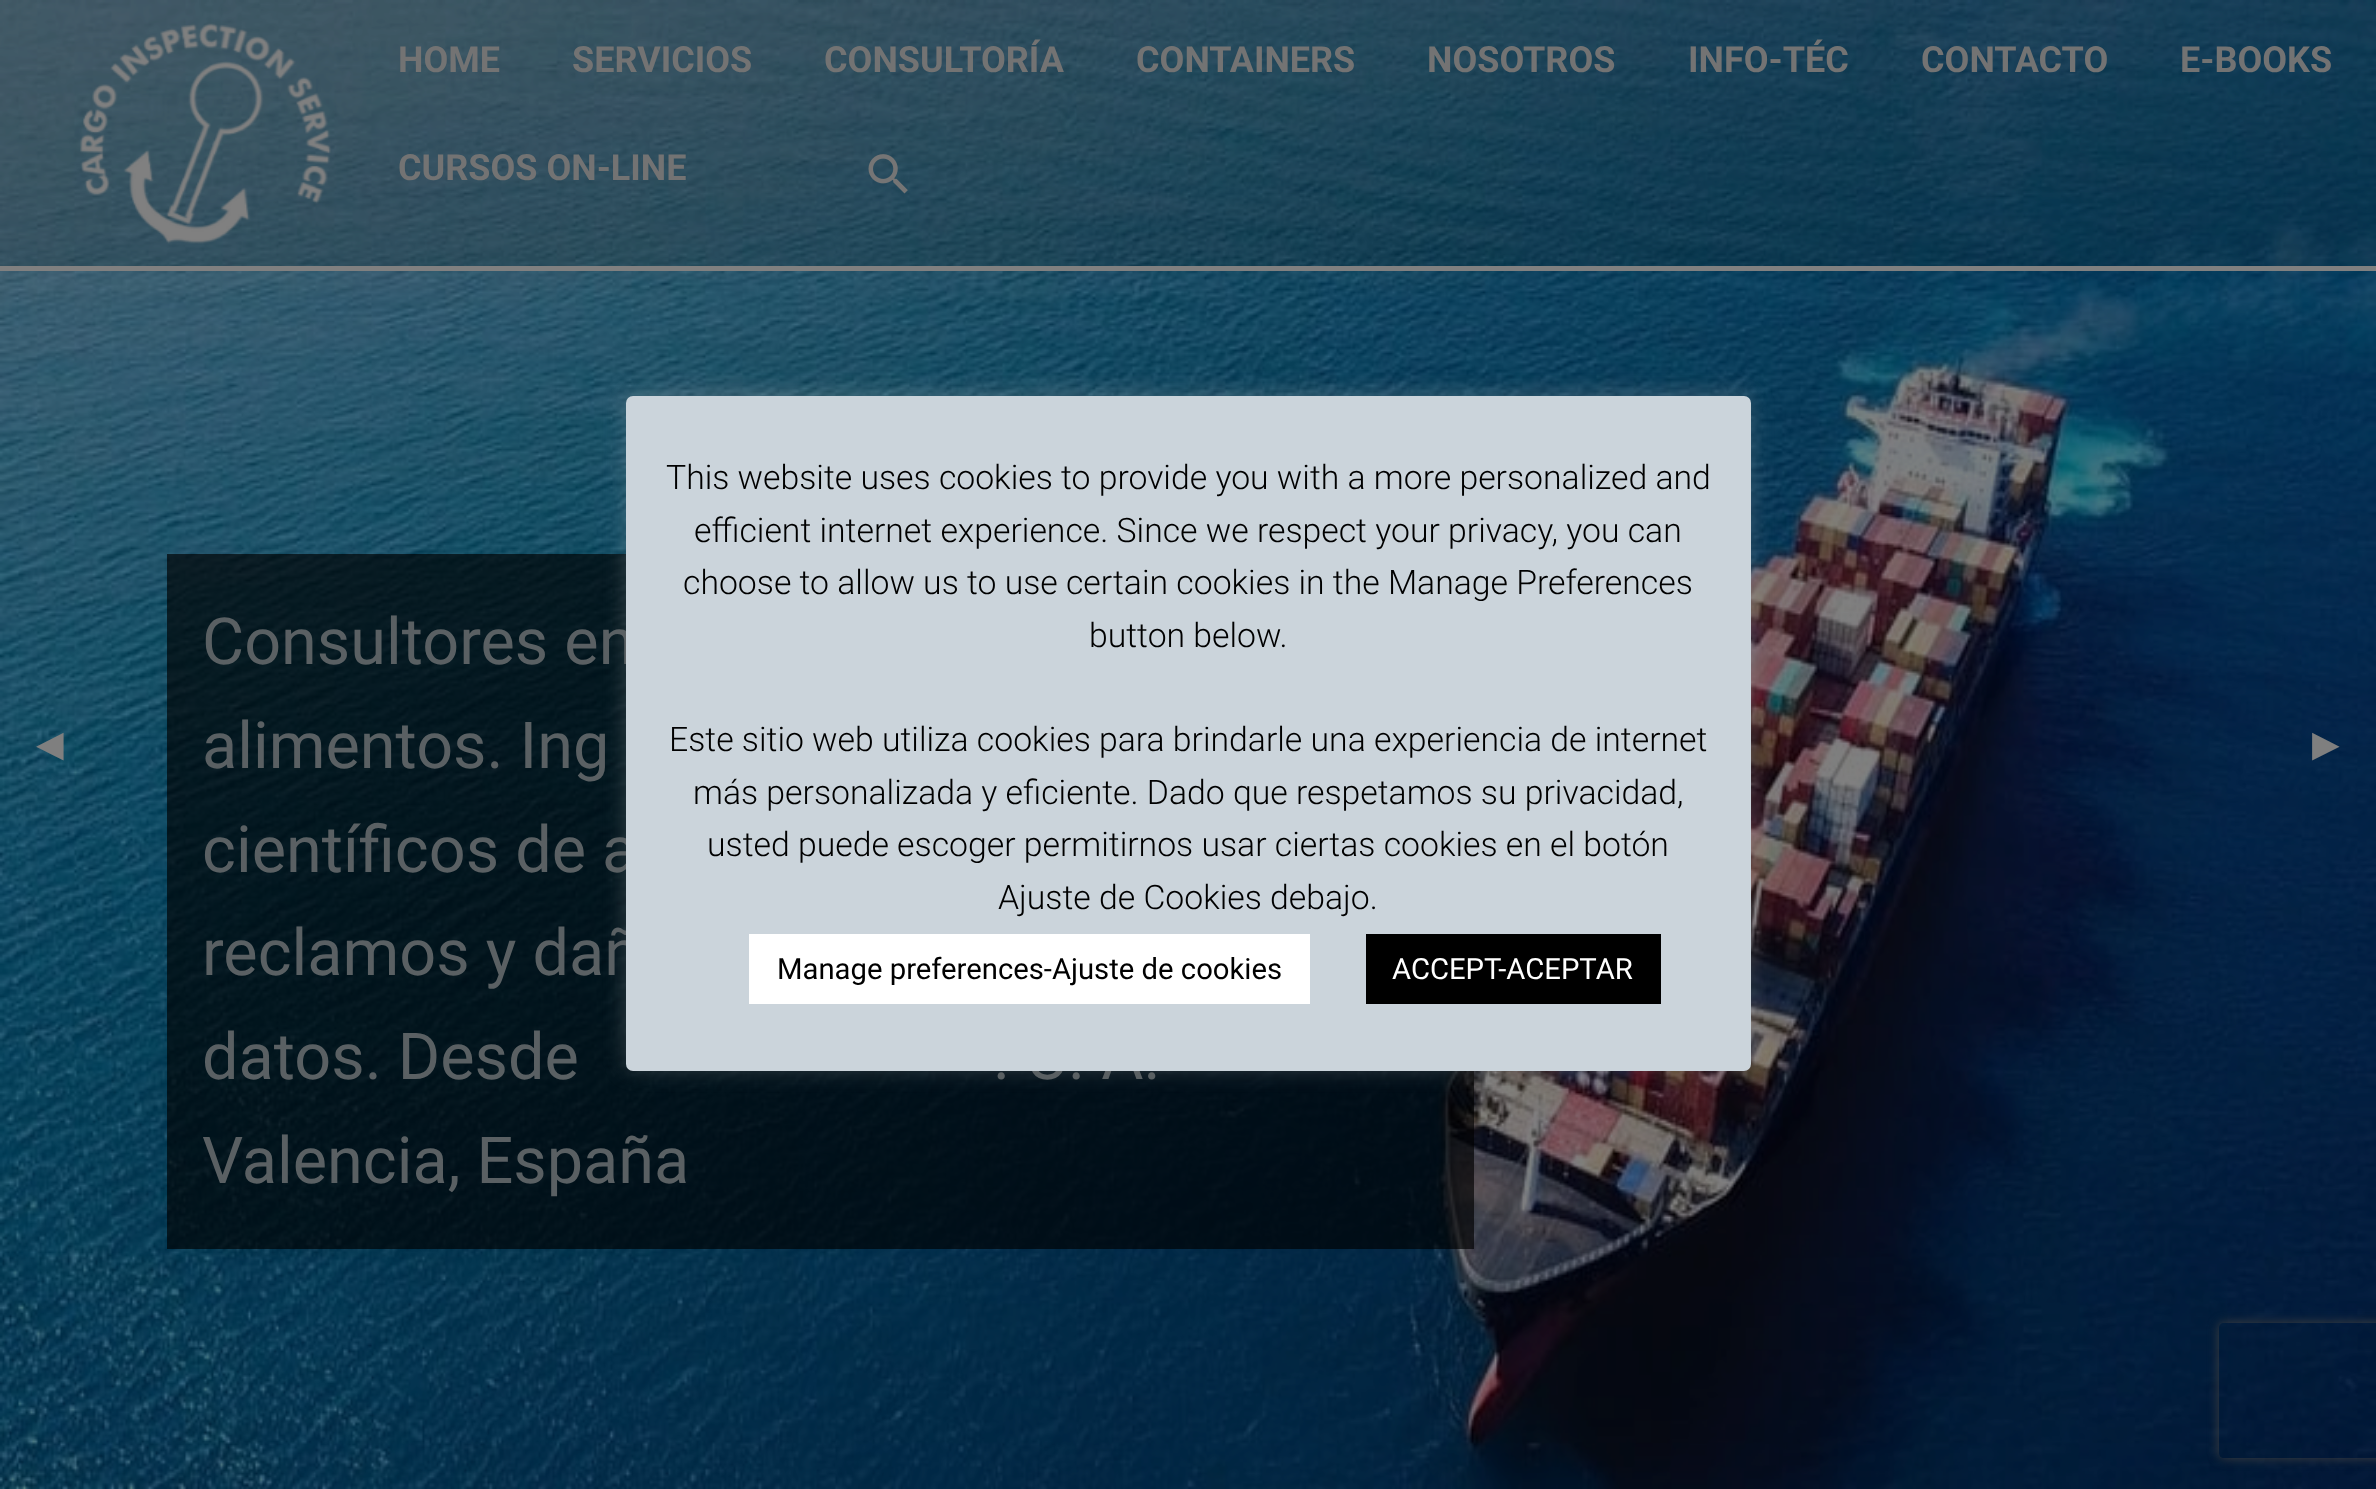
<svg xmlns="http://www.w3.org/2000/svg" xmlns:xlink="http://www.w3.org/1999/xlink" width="2376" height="1489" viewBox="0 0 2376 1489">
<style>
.cls-1{font:bold 36px Roboto;fill:#737373}
.cls-2{font:64.75px Roboto;fill:#5a6063}
.cls-3{font:29.25px Roboto;fill:#ffffff}
.cls-4{font:29.25px Roboto;fill:#000000}
.cls-5{font:300 33.75px Roboto;fill:#000000}
.cls-6{font:36px DejaVu Sans;fill:#7f7f7f}
</style>
<defs>
<clipPath id="clip1"><path d="M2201 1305H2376V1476H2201ZM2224 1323H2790C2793 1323 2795 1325 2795 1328V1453C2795 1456 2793 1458 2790 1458H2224C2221 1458 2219 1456 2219 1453V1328C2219 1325 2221 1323 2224 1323Z" clip-rule="evenodd"/></clipPath>
</defs>
<rect width="100%" height="100%" fill="#ffffff"/>
<image xlink:href="image2.png" x="0" y="0" width="2376" height="1489"/>
<rect fill="#161c20" fill-opacity="0.2" x="0" y="0" width="2376" height="266"/>
<rect fill="#808080" x="0" y="266" width="2376" height="5"/>
<image xlink:href="image0.png" x="80" y="23" width="251" height="221"/>
<image xlink:href="image1.png" x="868" y="154" width="40" height="40"/>
<rect fill="#000000" fill-opacity="0.66" x="167" y="554" width="1307" height="695"/>
<rect fill="#acabab" fill-opacity="0.3" filter="blur(11px)" x="626" y="394" width="1125" height="675" rx="7"/>
<g clip-path="url(#clip1)">
<rect fill="#404040" filter="blur(5.5px)" x="2219" y="1323" width="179" height="135" rx="5"/>
</g>
<text class="cls-1" x="398" y="72">HOME</text>
<text class="cls-1" x="572" y="72">SERVICIOS</text>
<text class="cls-1" x="824" y="72">CONSULTORÍA</text>
<text class="cls-1" x="1136" y="72">CONTAINERS</text>
<text class="cls-1" x="1427" y="72">NOSOTROS</text>
<text class="cls-1" x="1688" y="72">INFO-TÉC</text>
<text class="cls-1" x="1921" y="72">CONTACTO</text>
<text class="cls-1" x="2180" y="72">E-BOOKS</text>
<text class="cls-1" x="398" y="180">CURSOS ON-LINE</text>
<text class="cls-2"><tspan x="202" y="664">Consultores en</tspan><tspan x="202" y="768">alimentos. Ing</tspan><tspan x="202" y="872">científicos de a</tspan><tspan x="202" y="975">reclamos y dañ</tspan><tspan x="202" y="1079">datos. Desde</tspan></text>
<text class="cls-2" x="993" y="1079">. U. A.</text>
<rect fill="#cbd4db" x="626" y="396" width="1125" height="675" rx="7"/>
<rect fill="#000000" x="1366" y="934" width="295" height="70"/>
<text class="cls-3" x="1392" y="979">ACCEPT-ACEPTAR</text>
<rect fill="#ffffff" x="749" y="934" width="561" height="70"/>
<text class="cls-4" x="777" y="979">Manage preferences-Ajuste de cookies</text>
<text class="cls-5" x="998" y="909">Ajuste de Cookies debajo.</text>
<text class="cls-5" x="707" y="856">usted puede escoger permitirnos usar ciertas cookies en el botón</text>
<text class="cls-5" x="693" y="804">más personalizada y eficiente. Dado que respetamos su privacidad,</text>
<text class="cls-5" x="669" y="751">Este sitio web utiliza cookies para brindarle una experiencia de internet</text>
<text class="cls-5" x="1089" y="647">button below.</text>
<text class="cls-5" x="683" y="594">choose to allow us to use certain cookies in the Manage Preferences</text>
<text class="cls-5" x="694" y="542">efficient internet experience. Since we respect your privacy, you can</text>
<text class="cls-5" x="666" y="489">This website uses cookies to provide you with a more personalized and</text>
<text class="cls-2" x="202" y="1183">Valencia, España</text>
<text class="cls-6" x="36" y="756">◀︎</text>
<text class="cls-6" x="2312" y="756">▶︎</text>
</svg>
